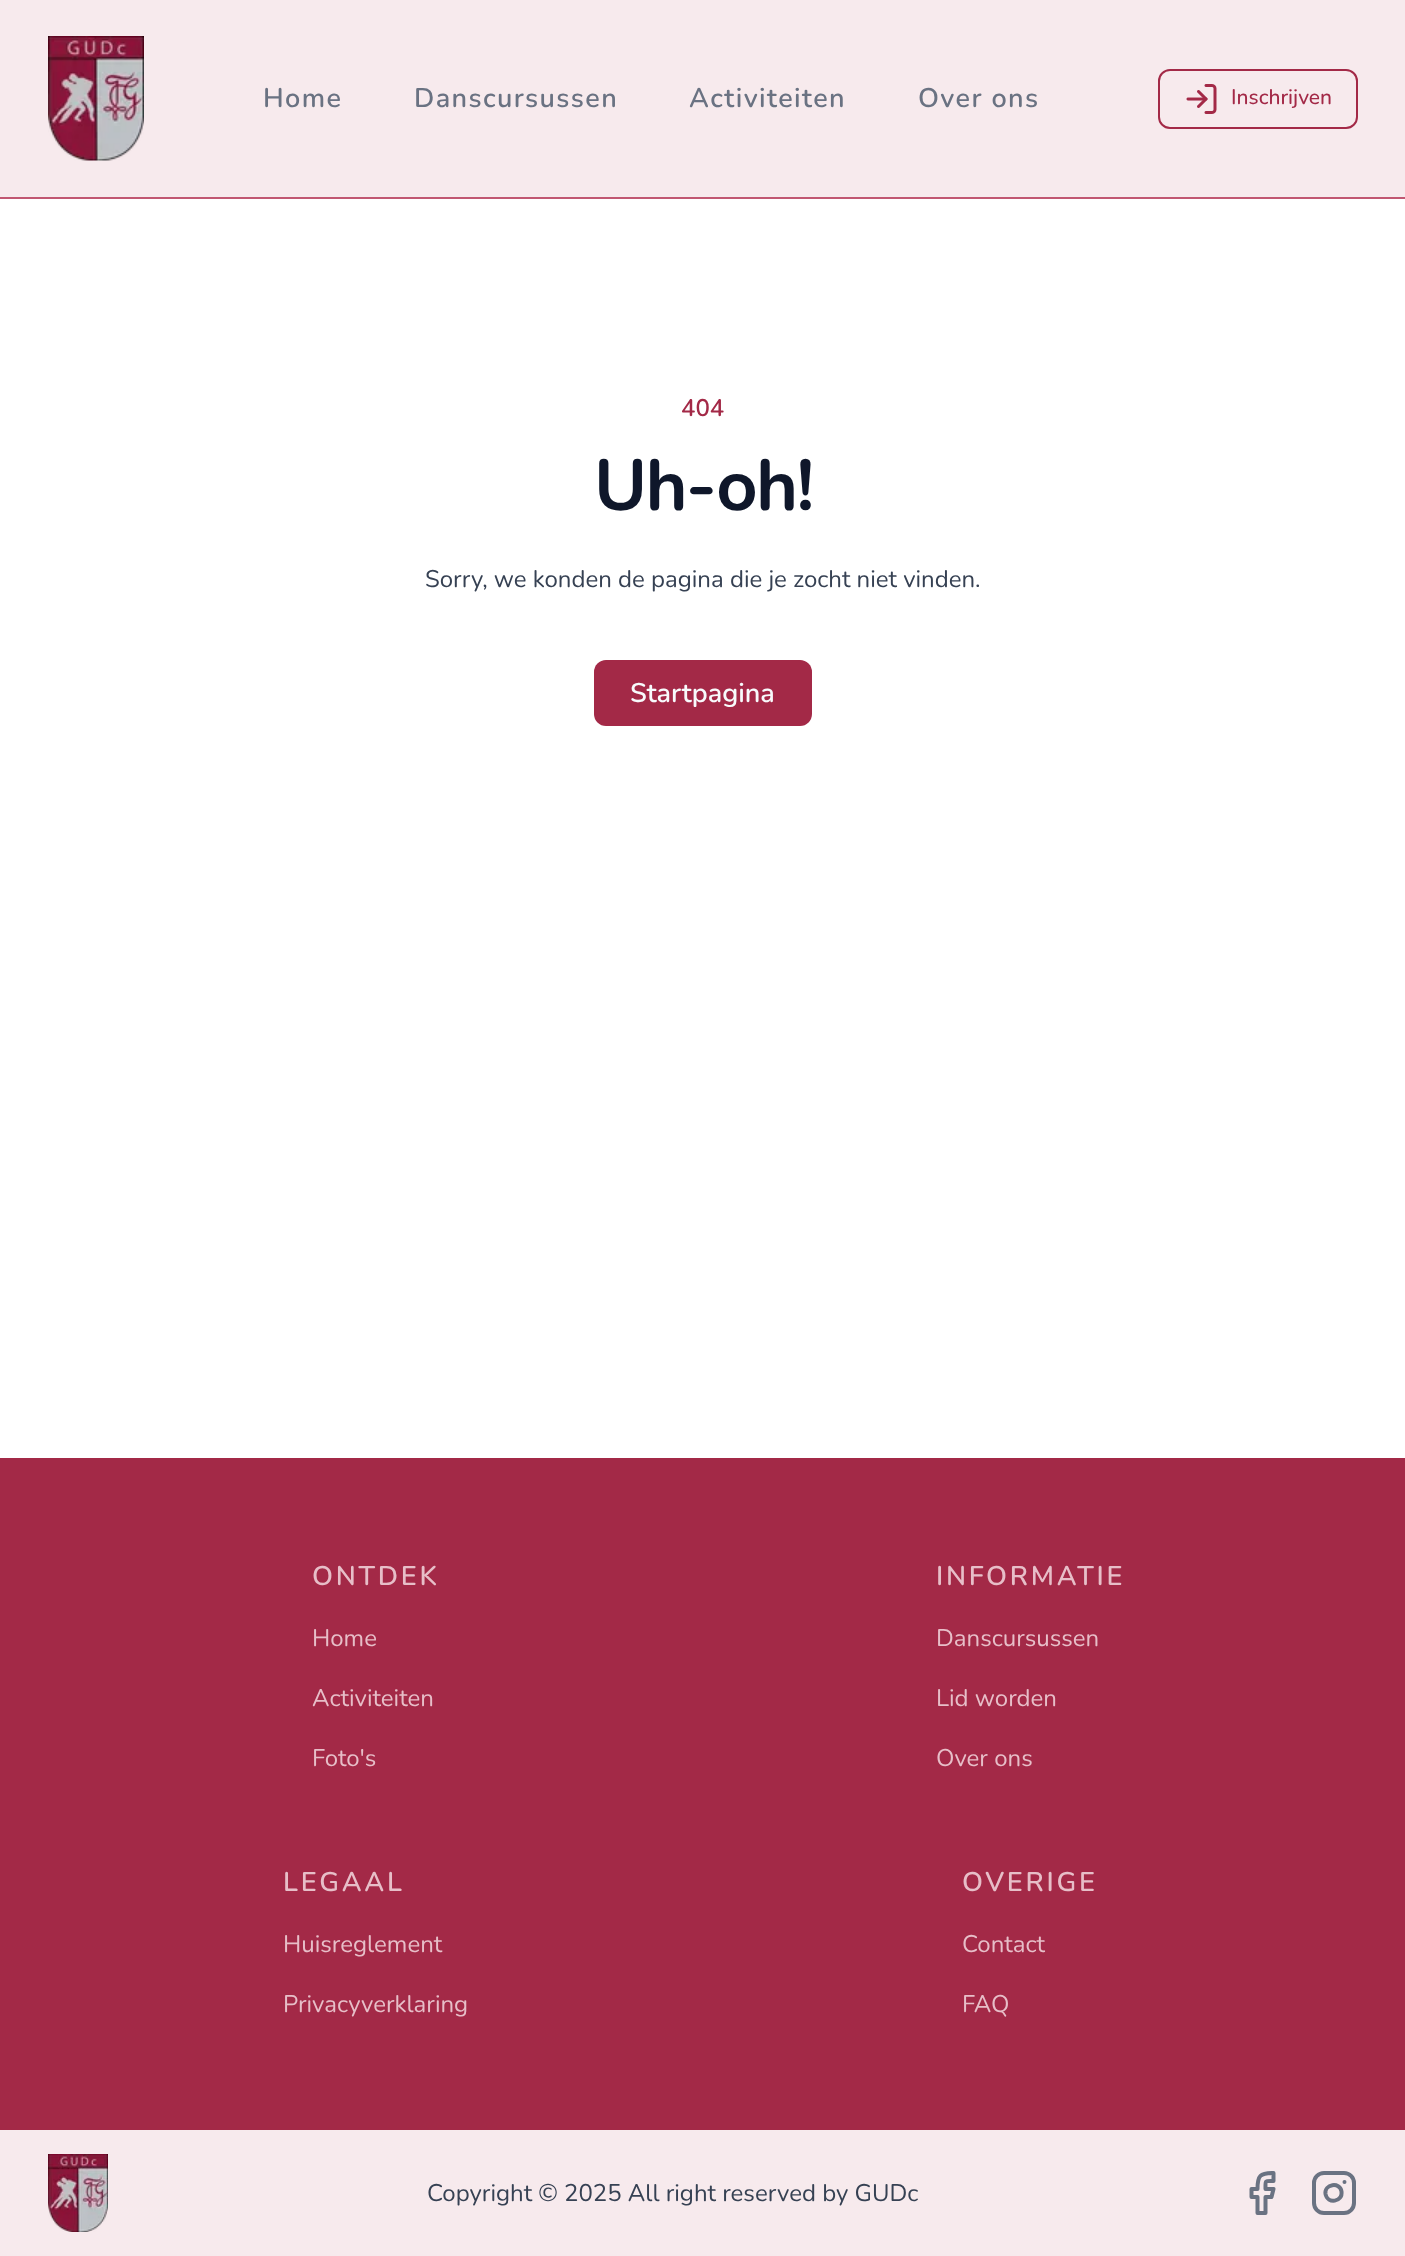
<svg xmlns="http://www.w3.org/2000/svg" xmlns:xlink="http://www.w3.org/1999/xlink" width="1405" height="2256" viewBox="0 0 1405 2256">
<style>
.cls-1{font:600 27px Nunito;letter-spacing:1.4px;fill:#6a7282}
.cls-2{font:500 21px Nunito;fill:#a32947}
.cls-3{font:600 24px Nunito;fill:#a32947}
.cls-4{font:bold 72px Nunito;letter-spacing:-1.75px;fill:#0f172a}
.cls-5{font:24px Nunito;fill:#364153}
.cls-6{font:600 27px Nunito;fill:#f8fafc}
.cls-7{font:600 27px Nunito;letter-spacing:2.75px;fill:#e7bec8}
.cls-8{font:24px Nunito;fill:#e7bec8}
</style>
<rect width="100%" height="100%" fill="#ffffff"/>
<rect fill="#f7eaed" x="0" y="0" width="1405" height="197"/>
<rect fill="#c15772" x="0" y="197" width="1405" height="2"/>
<image xlink:href="image0.png" x="48" y="36" width="96" height="125"/>
<rect fill="none" stroke="#a32947" stroke-width="2" x="1159" y="70" width="198" height="58" rx="11"/>
<image xlink:href="image1.png" x="1186" y="84" width="31" height="30"/>
<rect fill="#a32947" x="594" y="660" width="218" height="66" rx="12"/>
<rect fill="#a32947" x="0" y="1458" width="1405" height="672"/>
<rect fill="#f7eaed" x="0" y="2130" width="1405" height="126"/>
<image xlink:href="image2.png" x="48" y="2154" width="60" height="78"/>
<path fill="none" stroke="#6a7282" stroke-width="4" stroke-linecap="round" stroke-linejoin="round" d="M1273.5 2173C1260 2173 1257.5 2175.5 1257.5 2189H1251.5V2197H1257.5V2213H1265.5V2197H1271.5L1273.5 2189H1265.5C1265.5 2180 1264.5 2181 1273.5 2181Z"/>
<rect fill="none" stroke="#6a7282" stroke-width="4" x="1314" y="2173" width="40" height="40" rx="10"/>
<path fill="none" stroke="#6a7282" stroke-width="4" stroke-linecap="round" stroke-linejoin="round" d="M1341.5 2191.5C1343 2202 1327.5 2204.5 1325.5 2194C1324 2184 1340 2181.5 1341.5 2191.5ZM1344.5 2182H1344.5"/>
<text class="cls-1" x="263" y="107">Home</text>
<text class="cls-1" x="414" y="107">Danscursussen</text>
<text class="cls-1" x="689" y="107">Activiteiten</text>
<text class="cls-1" x="918" y="107">Over ons</text>
<text class="cls-2" x="1231" y="104">Inschrijven</text>
<text class="cls-3" x="681" y="416">404</text>
<text class="cls-4" x="594" y="510">Uh-oh!</text>
<text class="cls-5" x="425" y="587">Sorry, we konden de pagina die je zocht niet vinden.</text>
<text class="cls-6" x="630" y="702">Startpagina</text>
<text class="cls-7" x="312" y="1585">ONTDEK</text>
<text class="cls-8" x="312" y="1646">Home</text>
<text class="cls-8" x="312" y="1706">Activiteiten</text>
<text class="cls-8" x="312" y="1766">Foto's</text>
<text class="cls-7" x="936" y="1585">INFORMATIE</text>
<text class="cls-8" x="936" y="1646">Danscursussen</text>
<text class="cls-8" x="936" y="1706">Lid worden</text>
<text class="cls-8" x="936" y="1766">Over ons</text>
<text class="cls-7" x="283" y="1891">LEGAAL</text>
<text class="cls-8" x="283" y="1952">Huisreglement</text>
<text class="cls-8" x="283" y="2012">Privacyverklaring</text>
<text class="cls-7" x="962" y="1891">OVERIGE</text>
<text class="cls-8" x="962" y="1952">Contact</text>
<text class="cls-8" x="962" y="2012">FAQ</text>
<text class="cls-5" x="427" y="2201">Copyright © 2025 All right reserved by GUDc</text>
</svg>
